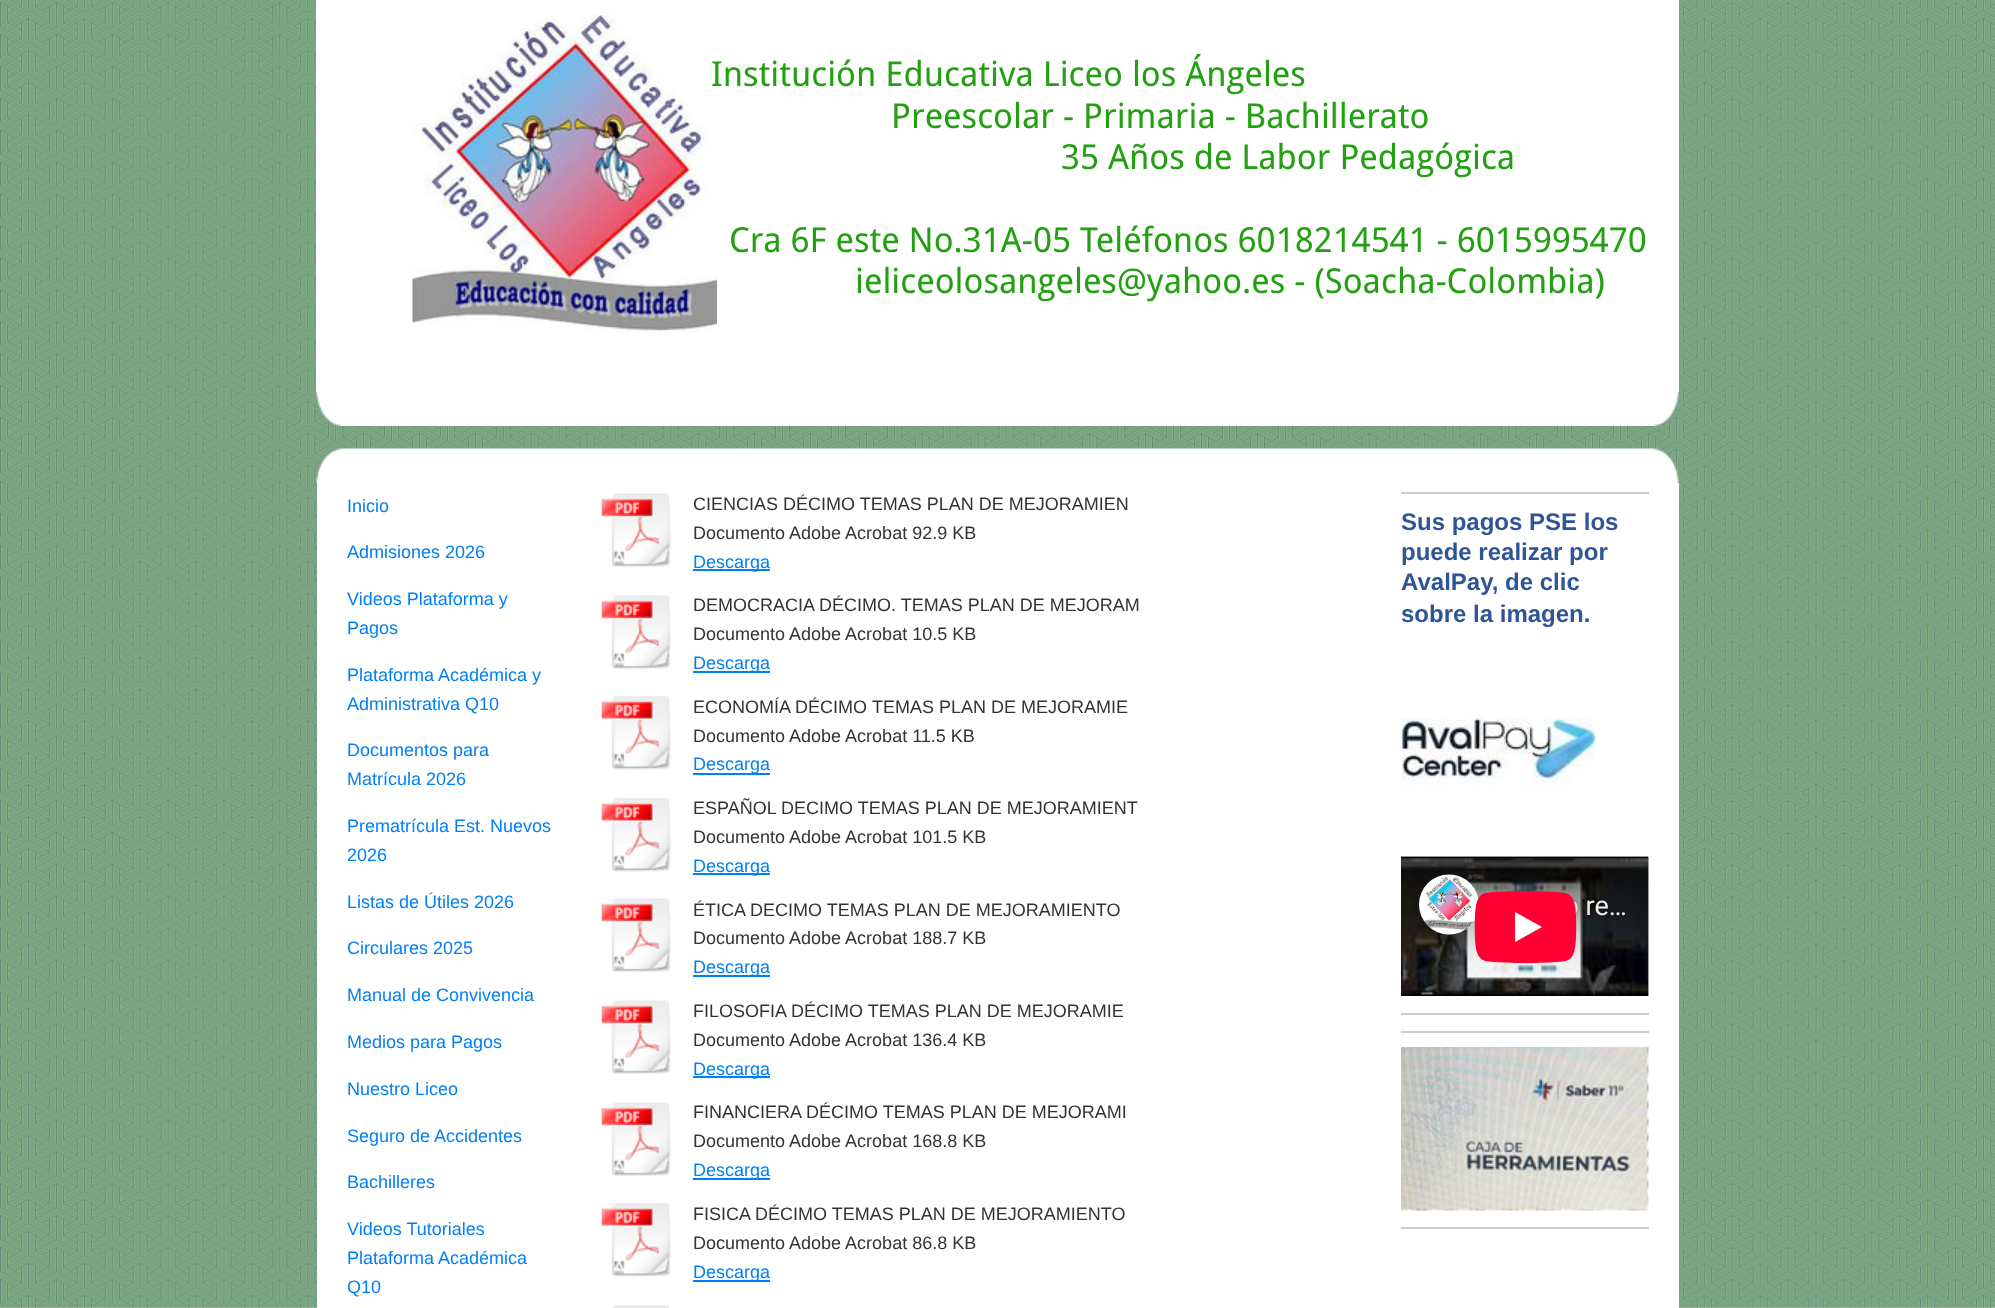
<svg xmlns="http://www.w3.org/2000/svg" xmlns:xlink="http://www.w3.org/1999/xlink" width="1995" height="1308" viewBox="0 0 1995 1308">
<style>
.cls-1{font:34.5px Droid Sans;fill:#22a011}
.cls-2{font:18px Liberation Sans;fill:#0080f6}
.cls-3{font:18px Liberation Sans;fill:#333333}
.cls-4{font:bold 24px Liberation Sans;fill:#2f5597}
</style>
<rect width="100%" height="100%" fill="#ffffff"/>
<image xlink:href="image0.png" x="0" y="0" width="1995" height="1308"/>
<rect fill="#ffffff" x="316" y="0" width="1363" height="392"/>
<image xlink:href="image1.png" x="412" y="15" width="305" height="318"/>
<image xlink:href="image2.png" x="316" y="392" width="1363" height="34"/>
<image xlink:href="image3.png" x="316" y="448" width="1363" height="35"/>
<rect fill="#ffffff" x="317" y="483" width="1362" height="825"/>
<image xlink:href="image4.png" x="601" y="493" width="70" height="74"/>
<rect fill="#0080f6" x="693" y="569" width="77" height="2"/>
<image xlink:href="image4.png" x="601" y="595" width="70" height="74"/>
<rect fill="#0080f6" x="693" y="671" width="77" height="2"/>
<image xlink:href="image5.png" x="601" y="696" width="70" height="74"/>
<rect fill="#0080f6" x="693" y="773" width="77" height="2"/>
<image xlink:href="image5.png" x="601" y="798" width="70" height="74"/>
<rect fill="#0080f6" x="693" y="873" width="77" height="2"/>
<image xlink:href="image4.png" x="601" y="898" width="70" height="74"/>
<rect fill="#0080f6" x="693" y="975" width="77" height="2"/>
<image xlink:href="image4.png" x="601" y="1000" width="70" height="74"/>
<rect fill="#0080f6" x="693" y="1076" width="77" height="2"/>
<image xlink:href="image4.png" x="601" y="1102" width="70" height="74"/>
<rect fill="#0080f6" x="693" y="1178" width="77" height="2"/>
<image xlink:href="image5.png" x="601" y="1203" width="70" height="74"/>
<rect fill="#0080f6" x="693" y="1280" width="77" height="2"/>
<image xlink:href="image6.png" x="612" y="1305" width="58" height="3"/>
<rect fill="#cccccc" x="1401" y="492" width="248" height="2"/>
<image xlink:href="image7.png" x="1401" y="717" width="195" height="75"/>
<image xlink:href="image8.png" x="1401" y="856" width="248" height="140"/>
<rect fill="#cccccc" x="1401" y="1013" width="248" height="2"/>
<rect fill="#cccccc" x="1401" y="1031" width="248" height="2"/>
<image xlink:href="image9.png" x="1401" y="1047" width="248" height="164"/>
<rect fill="#cccccc" x="1401" y="1227" width="248" height="2"/>
<text class="cls-1" x="711" y="86">Institución Educativa Liceo los Ángeles</text>
<text class="cls-1" x="891" y="128">Preescolar - Primaria - Bachillerato</text>
<text class="cls-1" x="1061" y="169">35 Años de Labor Pedagógica</text>
<text class="cls-1" x="729" y="252">Cra 6F este No.31A-05 Teléfonos 6018214541 - 6015995470</text>
<text class="cls-1" x="855" y="293">ieliceolosangeles@yahoo.es - (Soacha-Colombia)</text>
<text class="cls-2" x="347" y="512">Inicio</text>
<text class="cls-2" x="347" y="558">Admisiones 2026</text>
<text class="cls-2"><tspan x="347" y="605">Videos Plataforma y</tspan><tspan x="347" y="634">Pagos</tspan></text>
<text class="cls-2"><tspan x="347" y="681">Plataforma Académica y</tspan><tspan x="347" y="710">Administrativa Q10</tspan></text>
<text class="cls-2"><tspan x="347" y="756">Documentos para</tspan><tspan x="347" y="785">Matrícula 2026</tspan></text>
<text class="cls-2"><tspan x="347" y="832">Prematrícula Est. Nuevos</tspan><tspan x="347" y="861">2026</tspan></text>
<text class="cls-2" x="347" y="908">Listas de Útiles 2026</text>
<text class="cls-2" x="347" y="954">Circulares 2025</text>
<text class="cls-2" x="347" y="1001">Manual de Convivencia</text>
<text class="cls-2" x="347" y="1048">Medios para Pagos</text>
<text class="cls-2" x="347" y="1095">Nuestro Liceo</text>
<text class="cls-2" x="347" y="1142">Seguro de Accidentes</text>
<text class="cls-2" x="347" y="1188">Bachilleres</text>
<text class="cls-2"><tspan x="347" y="1235">Videos Tutoriales</tspan><tspan x="347" y="1264">Plataforma Académica</tspan><tspan x="347" y="1293">Q10</tspan></text>
<text class="cls-3"><tspan x="693" y="510">CIENCIAS DÉCIMO TEMAS PLAN DE MEJORAMIEN</tspan><tspan x="693" y="539">Documento Adobe Acrobat 92.9 KB</tspan></text>
<text class="cls-2" x="693" y="568">Descarga</text>
<text class="cls-3"><tspan x="693" y="611">DEMOCRACIA DÉCIMO. TEMAS PLAN DE MEJORAM</tspan><tspan x="693" y="640">Documento Adobe Acrobat 10.5 KB</tspan></text>
<text class="cls-2" x="693" y="669">Descarga</text>
<text class="cls-3" x="693" y="713">ECONOMÍA DÉCIMO</text>
<text class="cls-3" x="872" y="713">TEMAS PLAN DE MEJORAMIE</text>
<text class="cls-3" x="693" y="742">Documento Adobe Acrobat 11.5 KB</text>
<text class="cls-2" x="693" y="770">Descarga</text>
<text class="cls-3"><tspan x="693" y="814">ESPAÑOL DECIMO TEMAS PLAN DE MEJORAMIENT</tspan><tspan x="693" y="843">Documento Adobe Acrobat 101.5 KB</tspan></text>
<text class="cls-2" x="693" y="872">Descarga</text>
<text class="cls-3"><tspan x="693" y="916">ÉTICA DECIMO TEMAS PLAN DE MEJORAMIENTO</tspan><tspan x="693" y="944">Documento Adobe Acrobat 188.7 KB</tspan></text>
<text class="cls-2" x="693" y="973">Descarga</text>
<text class="cls-3"><tspan x="693" y="1017">FILOSOFIA DÉCIMO TEMAS PLAN DE MEJORAMIE</tspan><tspan x="693" y="1046">Documento Adobe Acrobat 136.4 KB</tspan></text>
<text class="cls-2" x="693" y="1075">Descarga</text>
<text class="cls-3"><tspan x="693" y="1118">FINANCIERA DÉCIMO TEMAS PLAN DE MEJORAMI</tspan><tspan x="693" y="1147">Documento Adobe Acrobat 168.8 KB</tspan></text>
<text class="cls-2" x="693" y="1176">Descarga</text>
<text class="cls-3"><tspan x="693" y="1220">FISICA DÉCIMO TEMAS PLAN DE MEJORAMIENTO</tspan><tspan x="693" y="1249">Documento Adobe Acrobat 86.8 KB</tspan></text>
<text class="cls-2" x="693" y="1278">Descarga</text>
<text class="cls-4"><tspan x="1401" y="530">Sus pagos PSE los</tspan><tspan x="1401" y="560">puede realizar por</tspan><tspan x="1401" y="590">AvalPay, de clic</tspan><tspan x="1401" y="622">sobre la imagen.</tspan></text>
</svg>
